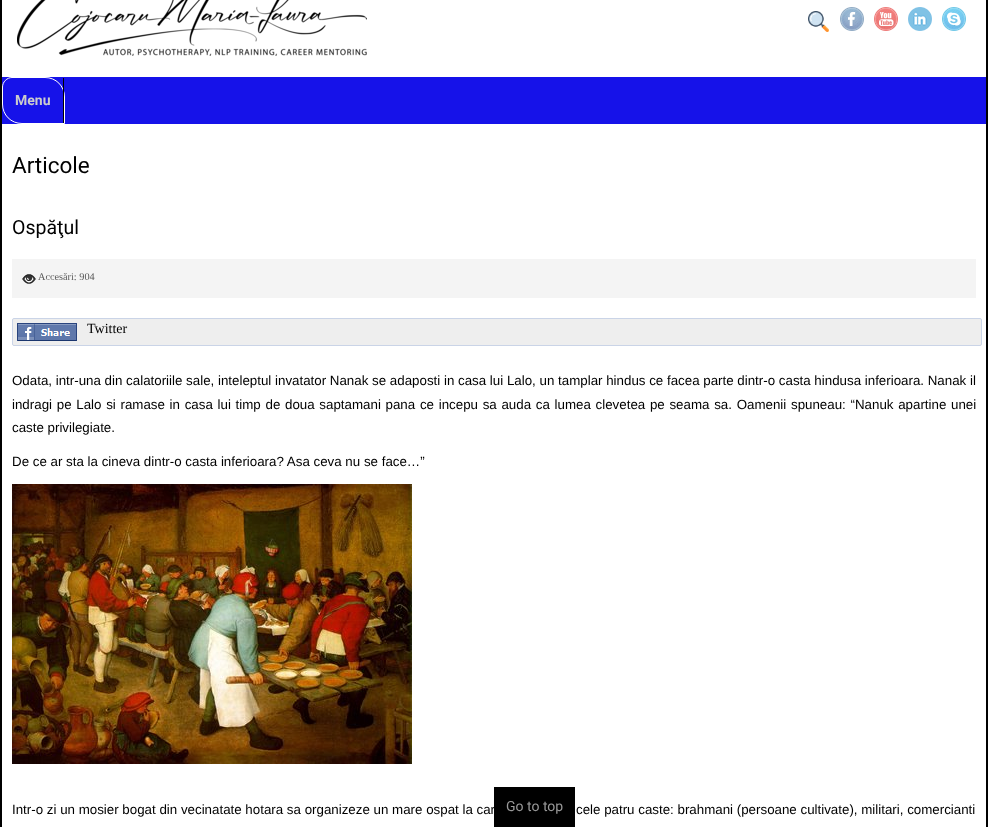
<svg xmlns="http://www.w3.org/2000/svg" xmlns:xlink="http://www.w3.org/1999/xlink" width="988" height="827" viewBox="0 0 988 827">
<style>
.cls-1{font:bold 14px Roboto;fill:#cccccc}
.cls-2{font:22.5px Roboto;fill:#000000}
.cls-3{font:19.5px Roboto;fill:#000000}
.cls-4{font:10.25px Liberation Serif;fill:#595959}
.cls-5{font:14px Liberation Serif;fill:#000000}
.cls-6{font:13.33px Liberation Sans;fill:#000000}
.cls-7{font:14px Roboto;fill:#999999}
</style>
<rect width="100%" height="100%" fill="#000000"/>
<rect fill="#ffffff" x="2" y="0" width="984" height="827"/>
<image xlink:href="image0.png" x="17" y="0" width="350" height="56"/>
<image xlink:href="image1.png" x="808" y="11" width="21" height="21"/>
<image xlink:href="image2.png" x="840" y="7" width="24" height="24"/>
<image xlink:href="image3.png" x="874" y="7" width="24" height="24"/>
<image xlink:href="image4.png" x="908" y="7" width="24" height="24"/>
<image xlink:href="image5.png" x="942" y="7" width="24" height="24"/>
<rect fill="#1612e9" x="2" y="77" width="984" height="47"/>
<path fill="none" stroke="#ffffff" d="M12 77.5H45C56 77.5 64.5 86 64.5 97V123.5H22C11 123.5 2.5 115 2.5 104V87C2.5 82 7 77.5 12 77.5Z"/>
<rect fill="#000000" x="63" y="78" width="1" height="45"/>
<rect fill="#f4f4f4" x="12" y="259" width="964" height="39"/>
<image xlink:href="image6.png" x="22" y="274" width="14" height="10"/>
<rect fill="#eeeeee" stroke="#cad4e7" x="12.5" y="318.5" width="969" height="27" rx="1.5"/>
<image xlink:href="image7.png" x="17" y="323" width="60" height="18"/>
<image xlink:href="image8.png" x="12" y="484" width="400" height="280"/>
<rect fill="#000000" x="494" y="787" width="81" height="40"/>
<text class="cls-1" x="15" y="105">Menu</text>
<text class="cls-2" x="12" y="173">Articole</text>
<text class="cls-3" x="12" y="234">Ospăţul</text>
<text class="cls-4" x="38" y="280">Accesări: 904</text>
<text class="cls-5" x="87" y="333">Twitter</text>
<text class="cls-6"><tspan x="12" y="385">Odata, intr-una din calatoriile sale, inteleptul invatator Nanak se adaposti in casa lui Lalo, un tamplar hindus ce facea parte dintr-o casta hindusa inferioara. Nanak il</tspan><tspan x="12" y="409" word-spacing="1">indragi pe Lalo si ramase in casa lui timp de doua saptamani pana ce incepu sa auda ca lumea clevetea pe seama sa. Oamenii spuneau: “Nanuk apartine unei</tspan><tspan x="12" y="432">caste privilegiate.</tspan></text>
<text class="cls-6" x="12" y="466">De ce ar sta la cineva dintr-o casta inferioara? Asa ceva nu se face…”</text>
<text class="cls-6" x="12" y="814">Intr-o zi un mosier bogat din vecinatate hotara sa organizeze un mare ospat la car</text>
<text class="cls-6" x="576" y="814">cele patru caste: brahmani (persoane cultivate), militari, comercianti</text>
<text class="cls-7" x="506" y="811">Go to top</text>
</svg>
